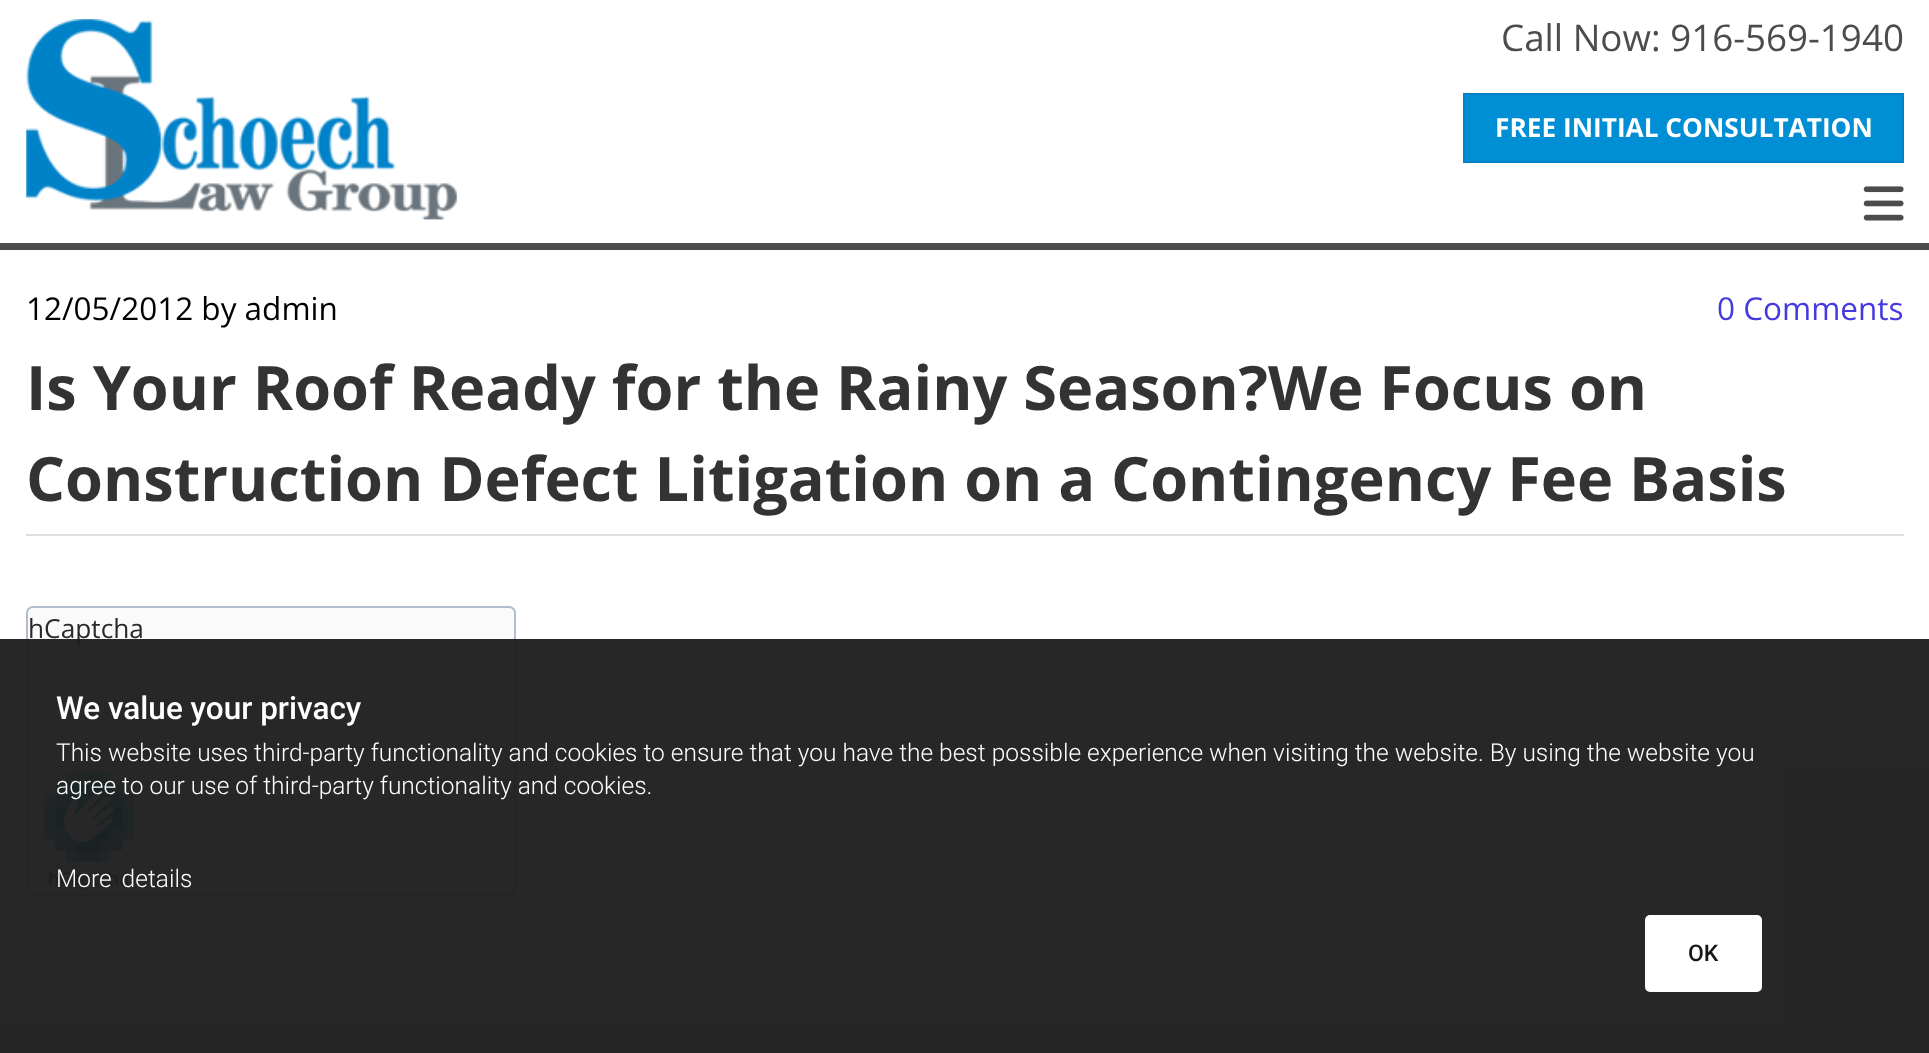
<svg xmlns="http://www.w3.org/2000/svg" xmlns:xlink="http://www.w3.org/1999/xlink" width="1929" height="1053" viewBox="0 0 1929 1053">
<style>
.cls-1{font:36.75px Open Sans;fill:#4c4c4c}
.cls-2{font:bold 26.25px Open Sans;fill:#ffffff}
.cls-3{font:31.5px Open Sans;fill:#000000}
.cls-4{font:31.5px Open Sans;fill:#443adf}
.cls-5{font:bold 61.25px Open Sans;fill:#333333}
.cls-6{font:26.25px Open Sans;fill:#292929}
.cls-7{font:500 31.5px Roboto;fill:#ffffff}
.cls-8{font:300 24.5px Roboto;fill:#ffffff}
.cls-9{font:500 23px Roboto;fill:#181818}
</style>
<rect width="100%" height="100%" fill="#ffffff"/>
<rect fill="#4c4c4c" x="0" y="243" width="1929" height="7"/>
<image xlink:href="image0.png" x="26" y="19" width="431" height="201"/>
<rect fill="#008ed5" stroke="#0082c4" stroke-width="2" x="1464" y="94" width="439" height="68"/>
<image xlink:href="image1.png" x="1863" y="186" width="41" height="35"/>
<rect fill="#e0e0e0" x="26" y="534" width="1878" height="2"/>
<rect fill="#fafafa" stroke="#b2bdcc" stroke-width="2" x="27" y="607" width="488" height="288" rx="6"/>
<image xlink:href="image2.png" x="34" y="772" width="108" height="123"/>
<text class="cls-1" x="1501" y="51">Call Now: 916-569-1940</text>
<text class="cls-2" x="1495" y="137">FREE INITIAL CONSULTATION</text>
<text class="cls-3" x="26" y="320">12/05/2012 by admin</text>
<text class="cls-4" x="1717" y="320">0 Comments</text>
<text class="cls-5"><tspan x="26" y="410">Is Your Roof Ready for the Rainy Season?We Focus on</tspan><tspan x="26" y="501">Construction Defect Litigation on a Contingency Fee Basis</tspan></text>
<text class="cls-6" x="28" y="638">hCaptcha</text>
<rect fill="#1b1b1b" fill-opacity="0.95" x="0" y="639" width="1929" height="414"/>
<text class="cls-7" x="56" y="719">We value your privacy</text>
<text class="cls-8"><tspan x="56" y="761">This website uses third-party functionality and cookies to ensure that you have the best possible experience when visiting the website. By using the website you</tspan><tspan x="56" y="794">agree to our use of third-party functionality and cookies.</tspan></text>
<text class="cls-8" x="56" y="887" word-spacing="4">More details</text>
<rect fill="#ffffff" stroke="#ffffff" stroke-width="2" x="1646" y="916" width="115" height="75" rx="4"/>
<text class="cls-9" x="1688" y="961">OK</text>
</svg>
